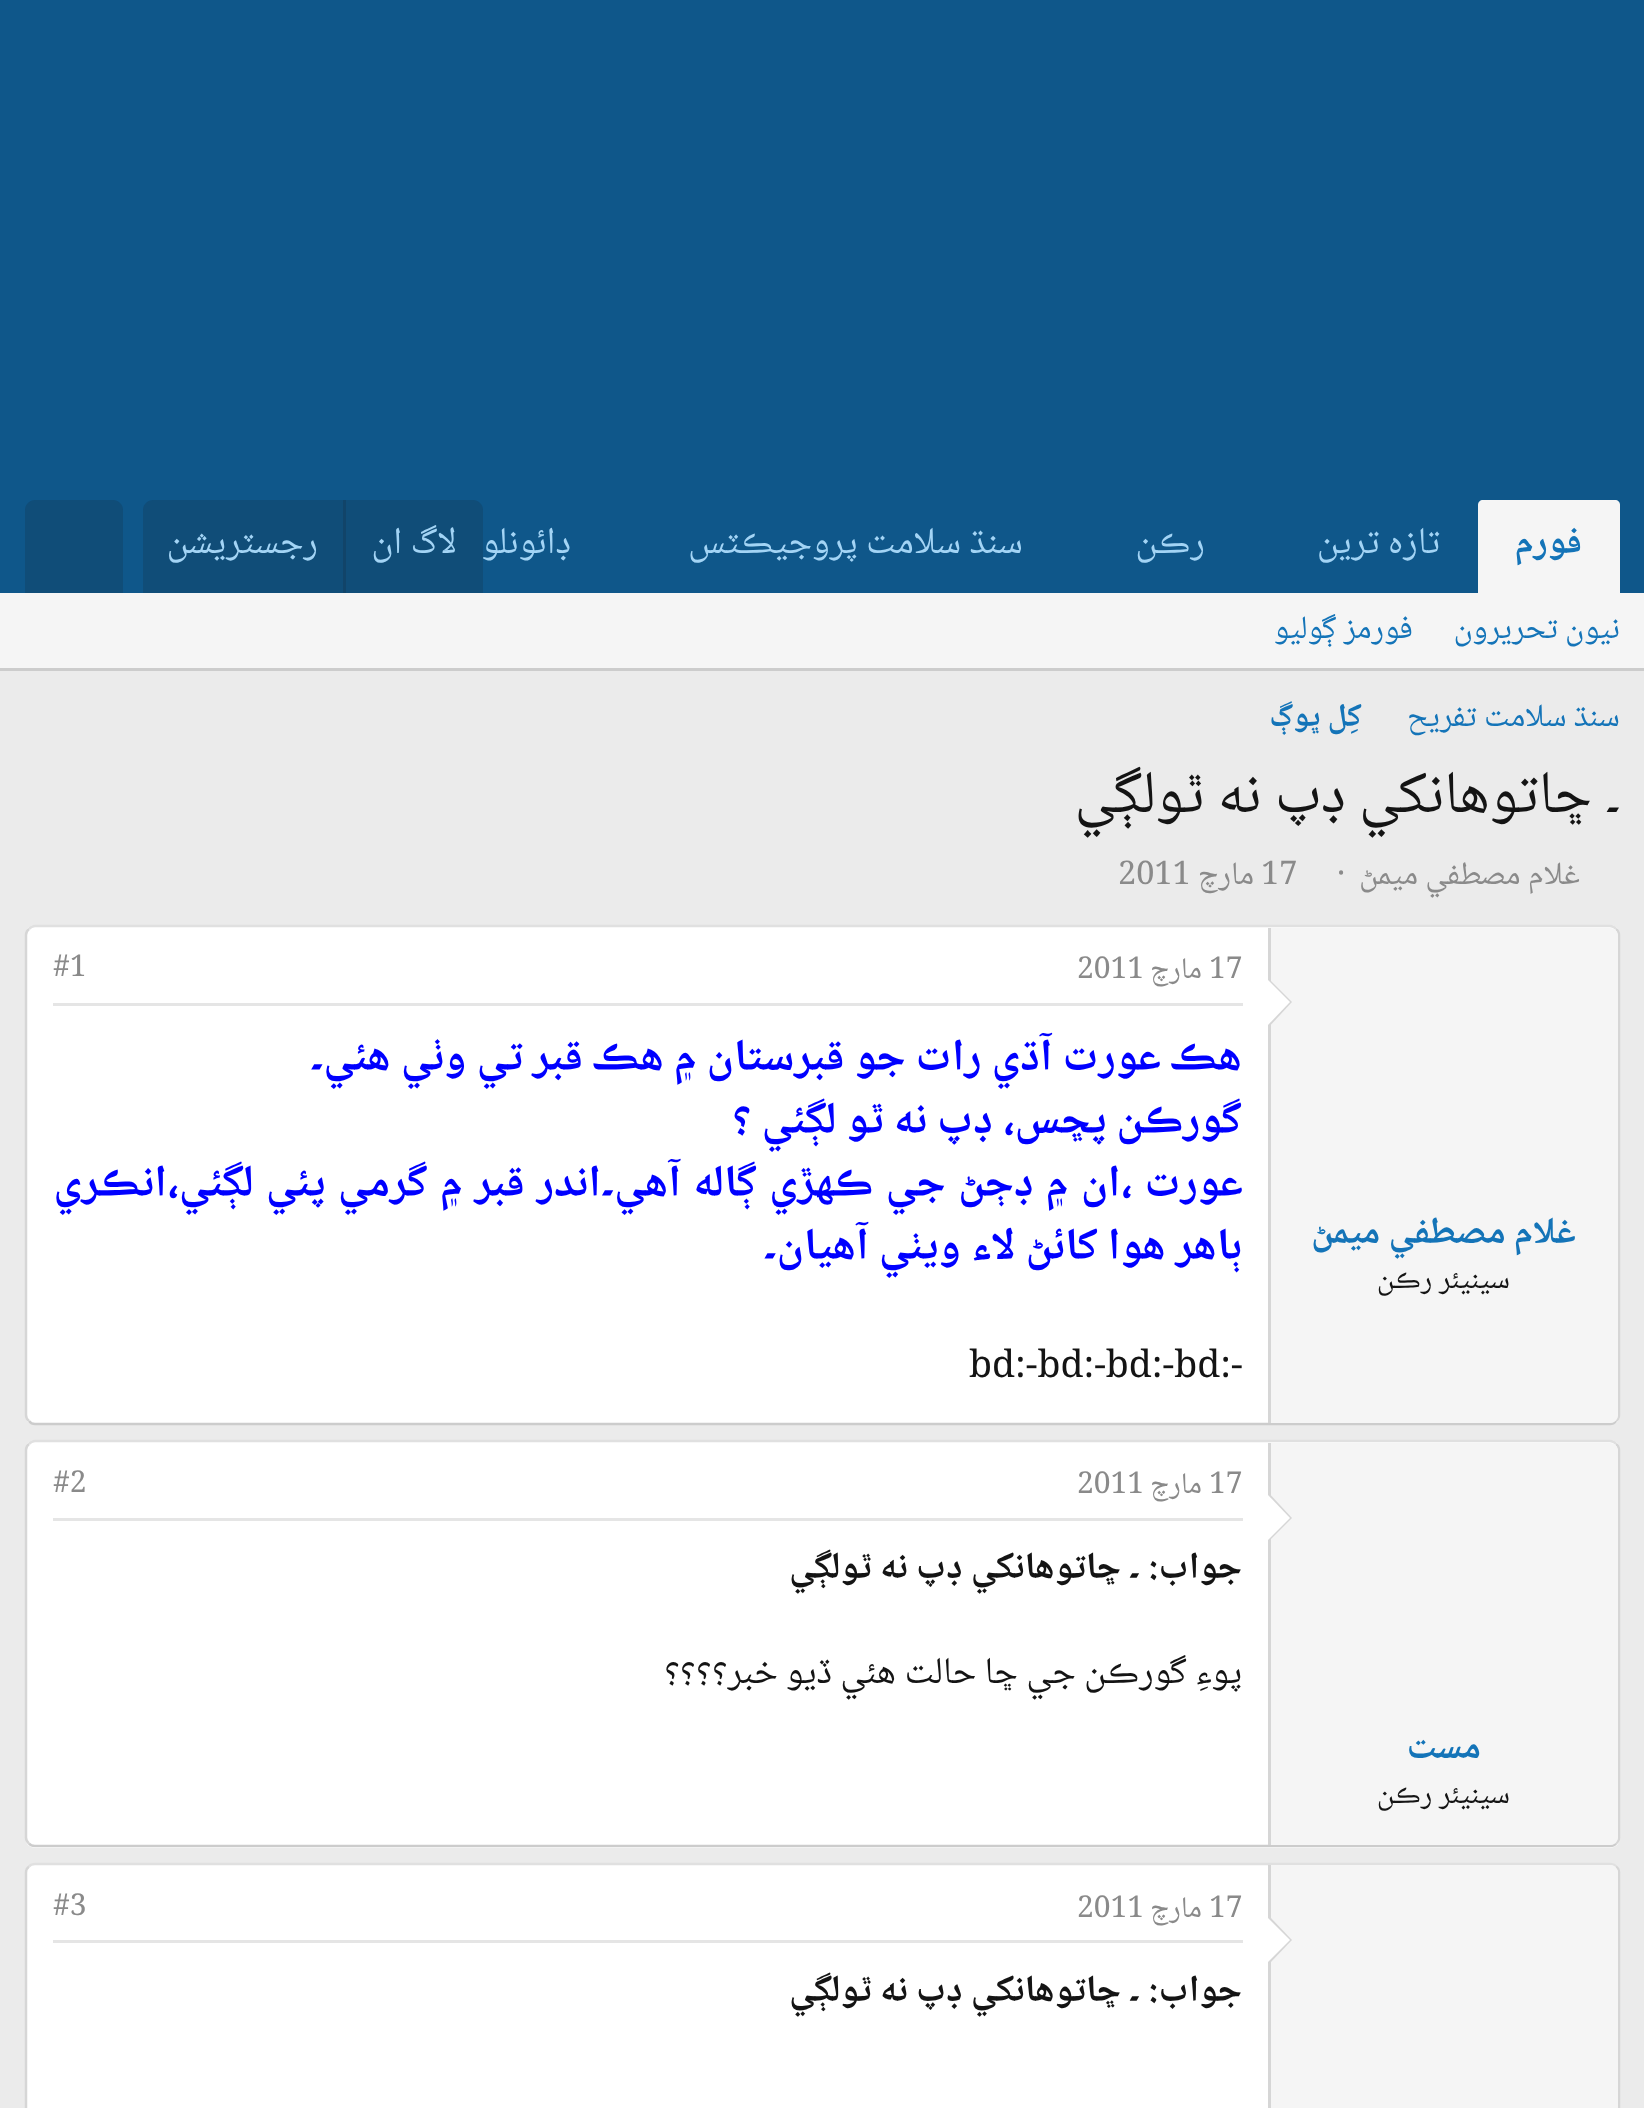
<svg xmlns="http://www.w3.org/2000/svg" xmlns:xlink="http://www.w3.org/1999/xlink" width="1644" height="2108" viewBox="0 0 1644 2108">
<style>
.cls-1{font:bold 37.5px Noto Naskh Arabic;direction:rtl;fill:#1474b8}
.cls-2{font:37.5px Noto Naskh Arabic;direction:rtl;fill:#a3d4f5}
.cls-3{font:32.5px Noto Naskh Arabic;direction:rtl;fill:#1474b8}
.cls-4{font:bold 32.5px Noto Naskh Arabic;direction:rtl;fill:#1474b8}
.cls-5{font:60px Noto Naskh Arabic;direction:rtl;fill:#141414}
.cls-6{font:32.5px Noto Naskh Arabic;direction:rtl;fill:#8a8a8a}
.cls-7{font:32.5px Noto Naskh Arabic;fill:#8a8a8a}
.cls-8{font:30px Noto Naskh Arabic;direction:rtl;fill:#141414}
.cls-9{font:30px Noto Naskh Arabic;fill:#8a8a8a}
.cls-10{font:30px Noto Naskh Arabic;direction:rtl;fill:#8a8a8a}
.cls-11{font:bold 45px Noto Naskh Arabic;direction:rtl;fill:#0000ff}
.cls-12{font:37.5px Noto Naskh Arabic;fill:#141414}
.cls-13{font:bold 37.5px Noto Naskh Arabic;direction:rtl;fill:#141414}
.cls-14{font:37.5px Noto Naskh Arabic;direction:rtl;fill:#141414}
</style>
<defs>
<clipPath id="clip1"><rect x="483" y="500" width="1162" height="93"/></clipPath>
</defs>
<rect width="100%" height="100%" fill="#ebebeb"/>
<rect fill="#0f578a" x="0" y="0" width="1644" height="593"/>
<path fill="#f5f5f5" d="M1483 500H1615C1618 500 1620 502 1620 505V593H1478V505C1478 502 1480 500 1483 500Z"/>
<path fill="#104d78" d="M153 500H473C478.5 500 483 504.5 483 510V593H143V510C143 504.5 147.5 500 153 500Z"/>
<rect fill="#114469" x="343" y="500" width="3" height="93"/>
<path fill="#104d78" d="M35 500H113C118.5 500 123 504.5 123 510V593H25V510C25 504.5 29.5 500 35 500Z"/>
<rect fill="#f5f5f5" x="0" y="593" width="1644" height="75"/>
<rect fill="#cccccc" x="0" y="668" width="1644" height="3"/>
<rect fill="#ffffff" x="25" y="925" width="1595" height="500" rx="10"/>
<path fill="none" stroke="#e0e0e0" stroke-width="2.5" d="M29 929C30.5 927 32.5 926 35 926H1610C1612.5 926 1614.5 927 1616 929"/>
<path fill="none" stroke="#d6d6d6" stroke-width="2.5" d="M1616 929C1618 930.5 1619 932.5 1619 935V1415C1619 1417.5 1618 1419.5 1616 1421"/>
<path fill="none" stroke="#cccccc" stroke-width="2.5" d="M1616 1421C1614.5 1423 1612.5 1424 1610 1424H35C32.5 1424 30.5 1423 29 1421"/>
<path fill="none" stroke="#d6d6d6" stroke-width="2.5" d="M29 1421C27 1419.5 26 1417.5 26 1415V935C26 932.5 27 930.5 29 929"/>
<path fill="#f5f5f5" d="M1268 928H1610C1614.5 928 1618 931.5 1618 936V1415C1618 1419.5 1614.5 1423 1610 1423H1268Z"/>
<rect fill="#d6d6d6" x="1268" y="928" width="3" height="495"/>
<path fill="#d6d6d6" d="M1268 1028V978L1292 1002Z"/>
<path fill="#ffffff" d="M1268 1025V980L1290 1002Z"/>
<rect fill="#e5e5e5" x="53" y="1003" width="1190" height="3"/>
<rect fill="#ffffff" x="25" y="1440" width="1595" height="408" rx="10"/>
<path fill="none" stroke="#e0e0e0" stroke-width="2.5" d="M29 1444C30.5 1442 32.5 1441 35 1441H1610C1612.5 1441 1614.5 1442 1616 1444"/>
<path fill="none" stroke="#d6d6d6" stroke-width="2.5" d="M1616 1444C1618 1445.5 1619 1447.5 1619 1450V1837.5C1619 1840 1618 1842 1616 1843.5"/>
<path fill="none" stroke="#cccccc" stroke-width="2.5" d="M1616 1843.5C1614.5 1845.5 1612.5 1846 1610 1846H35C32.5 1846 30.5 1845.5 29 1843.5"/>
<path fill="none" stroke="#d6d6d6" stroke-width="2.5" d="M29 1843.5C27 1842 26 1840 26 1837.5V1450C26 1447.5 27 1445.5 29 1444"/>
<rect fill="#e5e5e5" x="53" y="1518" width="1190" height="3"/>
<path fill="#f5f5f5" d="M1268 1443H1610C1614.5 1443 1618 1446.5 1618 1451V1837C1618 1841.5 1614.5 1845 1610 1845H1268Z"/>
<rect fill="#d6d6d6" x="1268" y="1443" width="3" height="402"/>
<path fill="#d6d6d6" d="M1268 1542V1492L1292 1518Z"/>
<path fill="#ffffff" d="M1268 1540V1495L1290 1518Z"/>
<rect fill="#ffffff" x="25" y="1863" width="1595" height="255" rx="10"/>
<path fill="none" stroke="#e0e0e0" stroke-width="2.5" d="M29 1866.5C30.5 1864.5 32.5 1864 35 1864H1610C1612.5 1864 1614.5 1864.5 1616 1866.5"/>
<path fill="none" stroke="#d6d6d6" stroke-width="2.5" d="M1616 1866.5C1618 1868 1619 1870 1619 1872.5V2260C1619 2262.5 1618 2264.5 1616 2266"/>
<path fill="none" stroke="#d6d6d6" stroke-width="2.5" d="M29 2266C27 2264.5 26 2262.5 26 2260V1872.5C26 1870 27 1868 29 1866.5"/>
<path fill="#f5f5f5" d="M1268 1865H1610C1614.5 1865 1618 1868.5 1618 1873V2108C1618 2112.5 1614.5 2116 1610 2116H1268Z"/>
<rect fill="#d6d6d6" x="1268" y="1865" width="3" height="243"/>
<path fill="#d6d6d6" d="M1268 1965V1915L1292 1940Z"/>
<path fill="#ffffff" d="M1268 1962V1918L1290 1940Z"/>
<rect fill="#e5e5e5" x="53" y="1940" width="1190" height="3"/>
<text class="cls-1" x="1582" y="553">فورم</text>
<text class="cls-2" x="1440" y="553">تازہ ترين</text>
<text class="cls-2" x="1205" y="553">رڪن</text>
<text class="cls-2" x="1023" y="553">سنڌ سلامت پروجيڪٽس</text>
<g clip-path="url(#clip1)">
<text class="cls-2" x="571" y="553">ڊائونلوڊ</text>
</g>
<text class="cls-2" x="457" y="553">لاگ ان</text>
<text class="cls-2" x="318" y="553">رجسٽريشن</text>
<text class="cls-3" x="1620" y="638">نيون تحريرون</text>
<text class="cls-3" x="1413" y="638">فورمز ڳوليو</text>
<text class="cls-3" x="1620" y="726">سنڌ سلامت تفريح</text>
<text class="cls-4" x="1362" y="726">کِل ڀوڳ</text>
<text class="cls-5" x="1620" y="812">۔</text>
<text class="cls-5" x="1592" y="812">ڇاتوهانکي ڊپ نه ٿولڳي</text>
<text class="cls-6" x="1580" y="884">غلام مصطفي ميمڻ</text>
<text class="cls-7" x="1337" y="884">·</text>
<text class="cls-7" x="1261" y="884">17</text>
<text class="cls-6" x="1254" y="884">مارچ</text>
<text class="cls-7" x="1118" y="884">2011</text>
<text class="cls-1" x="1576" y="1243">غلام مصطفي ميمڻ</text>
<text class="cls-8" x="1510" y="1288">سينيئر رڪن</text>
<text class="cls-9" x="1209" y="978">17</text>
<text class="cls-10" x="1202" y="978">مارچ</text>
<text class="cls-9" x="1077" y="978">2011</text>
<text class="cls-9" x="53" y="976">#1</text>
<text class="cls-11"><tspan x="1242" y="1070">هڪ عورت آڌي رات جو قبرستان ۾ هڪ قبر تي وٺي هئي۔</tspan><tspan x="1242" y="1133">گورڪن پڇس، ڊپ نه ٿو لڳئي ؟</tspan></text>
<text class="cls-11" x="1243" y="1196" word-spacing="2.25">عورت ،ان ۾ ڊڄڻ جي ڪهڙي ڳاله آهي۔اندر قبر ۾ گرمي پئي لڳئي،انڪري</text>
<text class="cls-11" x="1242" y="1259">ٻاهر هوا کائڻ لاء ويٺي آهيان۔</text>
<text class="cls-12" x="969" y="1377">bd:-bd:-bd:-bd:-</text>
<text class="cls-9" x="1209" y="1493">17</text>
<text class="cls-10" x="1202" y="1493">مارچ</text>
<text class="cls-9" x="1077" y="1493">2011</text>
<text class="cls-9" x="53" y="1492">#2</text>
<text class="cls-13" x="1242" y="1578">جواب: ۔</text>
<text class="cls-13" x="1121" y="1578">ڇاتوهانکي ڊپ نه ٿولڳي</text>
<text class="cls-14" x="1242" y="1683">پوءِ گورڪن جي ڇا حالت هئي ڏيو خبر؟؟؟؟</text>
<text class="cls-1" x="1481" y="1758">مست</text>
<text class="cls-8" x="1510" y="1803">سينيئر رڪن</text>
<text class="cls-9" x="1209" y="1917">17</text>
<text class="cls-10" x="1202" y="1917">مارچ</text>
<text class="cls-9" x="1077" y="1917">2011</text>
<text class="cls-9" x="53" y="1915">#3</text>
<text class="cls-13" x="1242" y="2001">جواب: ۔</text>
<text class="cls-13" x="1121" y="2001">ڇاتوهانکي ڊپ نه ٿولڳي</text>
</svg>
